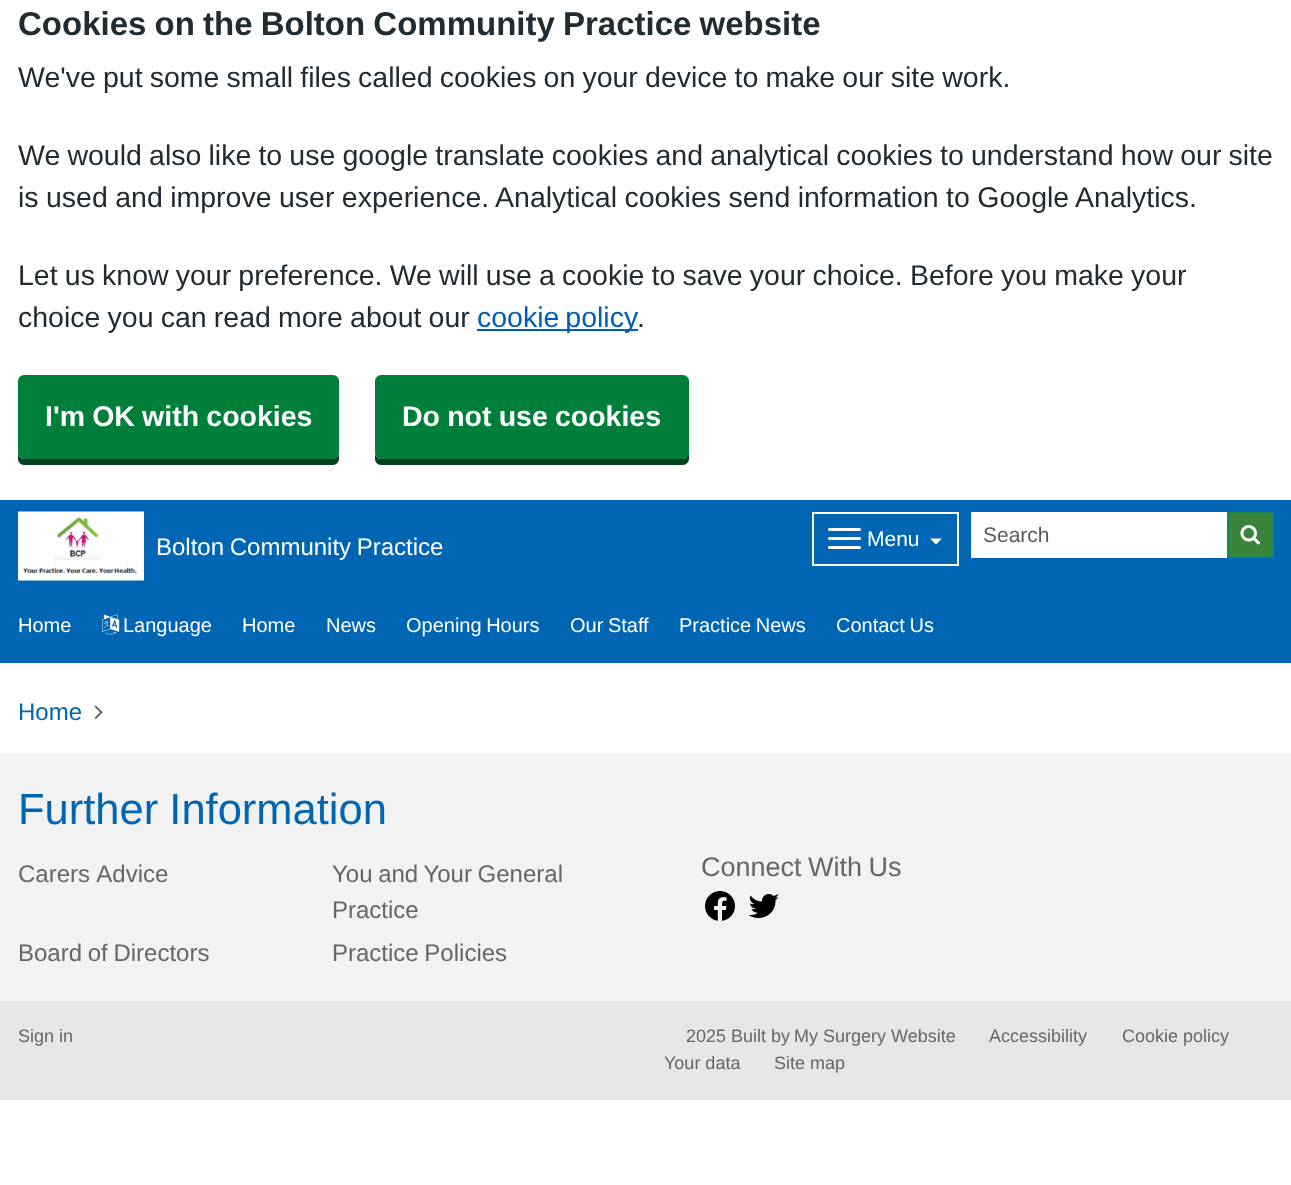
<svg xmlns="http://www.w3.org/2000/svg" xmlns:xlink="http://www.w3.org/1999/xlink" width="1291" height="1185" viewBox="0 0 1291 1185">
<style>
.cls-1{font:bold 33px Liberation Sans;fill:#212b32}
.cls-2{font:28.5px Liberation Sans;fill:#212b32}
.cls-3{font:28.5px Liberation Sans;fill:#005eb8}
.cls-4{font:bold 28.5px Liberation Sans;fill:#ffffff}
.cls-5{font:24px Liberation Sans;fill:#ffffff}
.cls-6{font:21px Liberation Sans;fill:#ffffff}
.cls-7{font:21px Liberation Sans;fill:#595c5f}
.cls-8{font:20px Liberation Sans;fill:#ffffff}
.cls-9{font:24px Liberation Sans;fill:#0066b3}
.cls-10{font:43.5px Liberation Sans;fill:#0066b3}
.cls-11{font:24px Liberation Sans;fill:#666666}
.cls-12{font:27px Liberation Sans;fill:#666666}
.cls-13{font:18px Liberation Sans;fill:#666666}
</style>
<rect width="100%" height="100%" fill="#ffffff"/>
<rect fill="#0066b3" x="0" y="500" width="1291" height="163"/>
<rect fill="#005eb8" x="477" y="329" width="161" height="2"/>
<path fill="#00401e" d="M18 453V459C18 462 21 465 24 465H333C336 465 339 462 339 459V453C339 456 336 459 333 459H24C21 459 18 456 18 453Z"/>
<rect fill="#007f3b" x="18" y="375" width="321" height="84" rx="6"/>
<path fill="#00401e" d="M375 453V459C375 462 378 465 381 465H683C686 465 689 462 689 459V387L688 385V453C688 456 686 459 682 459H381C378 459 375 456 375 453Z"/>
<rect fill="#007f3b" x="375" y="375" width="314" height="84" rx="6"/>
<image xlink:href="image0.png" x="18" y="511" width="126" height="70"/>
<rect fill="none" stroke="#ffffff" stroke-width="2" x="813" y="513" width="145" height="52"/>
<rect fill="#ffffff" x="828" y="528" width="33" height="3" rx="1.5"/>
<rect fill="#ffffff" x="828" y="537" width="33" height="3" rx="1.5"/>
<rect fill="#ffffff" x="828" y="546" width="33" height="3" rx="1.5"/>
<path fill="#ffffff" d="M930 538.5H942L936 544.5Z"/>
<rect fill="#ffffff" x="971" y="512" width="256" height="46"/>
<rect fill="#3a833a" stroke="#198754" stroke-width="2" x="1228" y="513" width="45" height="44"/>
<image xlink:href="image1.png" x="1240" y="525" width="20" height="20"/>
<image xlink:href="image2.png" x="102" y="614" width="18" height="21"/>
<image xlink:href="image3.png" x="94" y="705" width="9" height="14"/>
<rect fill="#f2f2f2" x="0" y="753" width="1291" height="248"/>
<image xlink:href="image4.png" x="705" y="891" width="30" height="30"/>
<image xlink:href="image5.png" x="748" y="894" width="31" height="24"/>
<rect fill="#e6e6e6" x="0" y="1001" width="1291" height="99"/>
<text class="cls-1" x="18" y="35" word-spacing="-1">Cookies on the Bolton Community Practice website</text>
<text class="cls-2" x="18" y="87" word-spacing="-0.75">We've put some small files called cookies on your device to make our site work.</text>
<text class="cls-2"><tspan x="18" y="165" word-spacing="-0.75">We would also like to use google translate cookies and analytical cookies to understand how our site</tspan><tspan x="18" y="207" word-spacing="-0.5">is used and improve user experience. Analytical cookies send information to Google Analytics.</tspan></text>
<text class="cls-2"><tspan x="18" y="285" word-spacing="-0.75">Let us know your preference. We will use a cookie to save your choice. Before you make your</tspan><tspan x="18" y="327" word-spacing="-0.75">choice you can read more about our</tspan></text>
<text class="cls-3" x="477" y="327" word-spacing="-2">cookie policy</text>
<text class="cls-2" x="637" y="327">.</text>
<text class="cls-4" x="45" y="426" word-spacing="-0.75">I'm OK with cookies</text>
<text class="cls-4" x="402" y="426" word-spacing="-0.75">Do not use cookies</text>
<text class="cls-5" x="156" y="555" word-spacing="-1">Bolton Community Practice</text>
<text class="cls-6" x="867" y="546">Menu</text>
<text class="cls-7" x="983" y="542">Search</text>
<text class="cls-8" x="18" y="632">Home</text>
<text class="cls-8" x="123" y="632">Language</text>
<text class="cls-8" x="242" y="632">Home</text>
<text class="cls-8" x="326" y="632">News</text>
<text class="cls-8" x="406" y="632" word-spacing="-1">Opening Hours</text>
<text class="cls-8" x="570" y="632" word-spacing="-1">Our Staff</text>
<text class="cls-8" x="679" y="632" word-spacing="-1">Practice News</text>
<text class="cls-8" x="836" y="632" word-spacing="-1">Contact Us</text>
<text class="cls-9" x="18" y="720">Home</text>
<text class="cls-10" x="18" y="824" word-spacing="-1">Further Information</text>
<text class="cls-11" x="18" y="882" word-spacing="1">Carers Advice</text>
<text class="cls-11"><tspan x="332" y="882" word-spacing="-1">You and Your General</tspan><tspan x="332" y="918">Practice</tspan></text>
<text class="cls-11" x="18" y="961" word-spacing="-1">Board of Directors</text>
<text class="cls-11" x="332" y="961" word-spacing="-1">Practice Policies</text>
<text class="cls-12" x="701" y="876" word-spacing="-1">Connect With Us</text>
<text class="cls-13" x="18" y="1042">Sign in</text>
<text class="cls-13" x="686" y="1042">2025 Built by</text>
<text class="cls-13" x="794" y="1042">My Surgery Website</text>
<text class="cls-13" x="989" y="1042">Accessibility</text>
<text class="cls-13" x="1122" y="1042">Cookie policy</text>
<text class="cls-13" x="664" y="1069">Your data</text>
<text class="cls-13" x="774" y="1069">Site map</text>
</svg>
